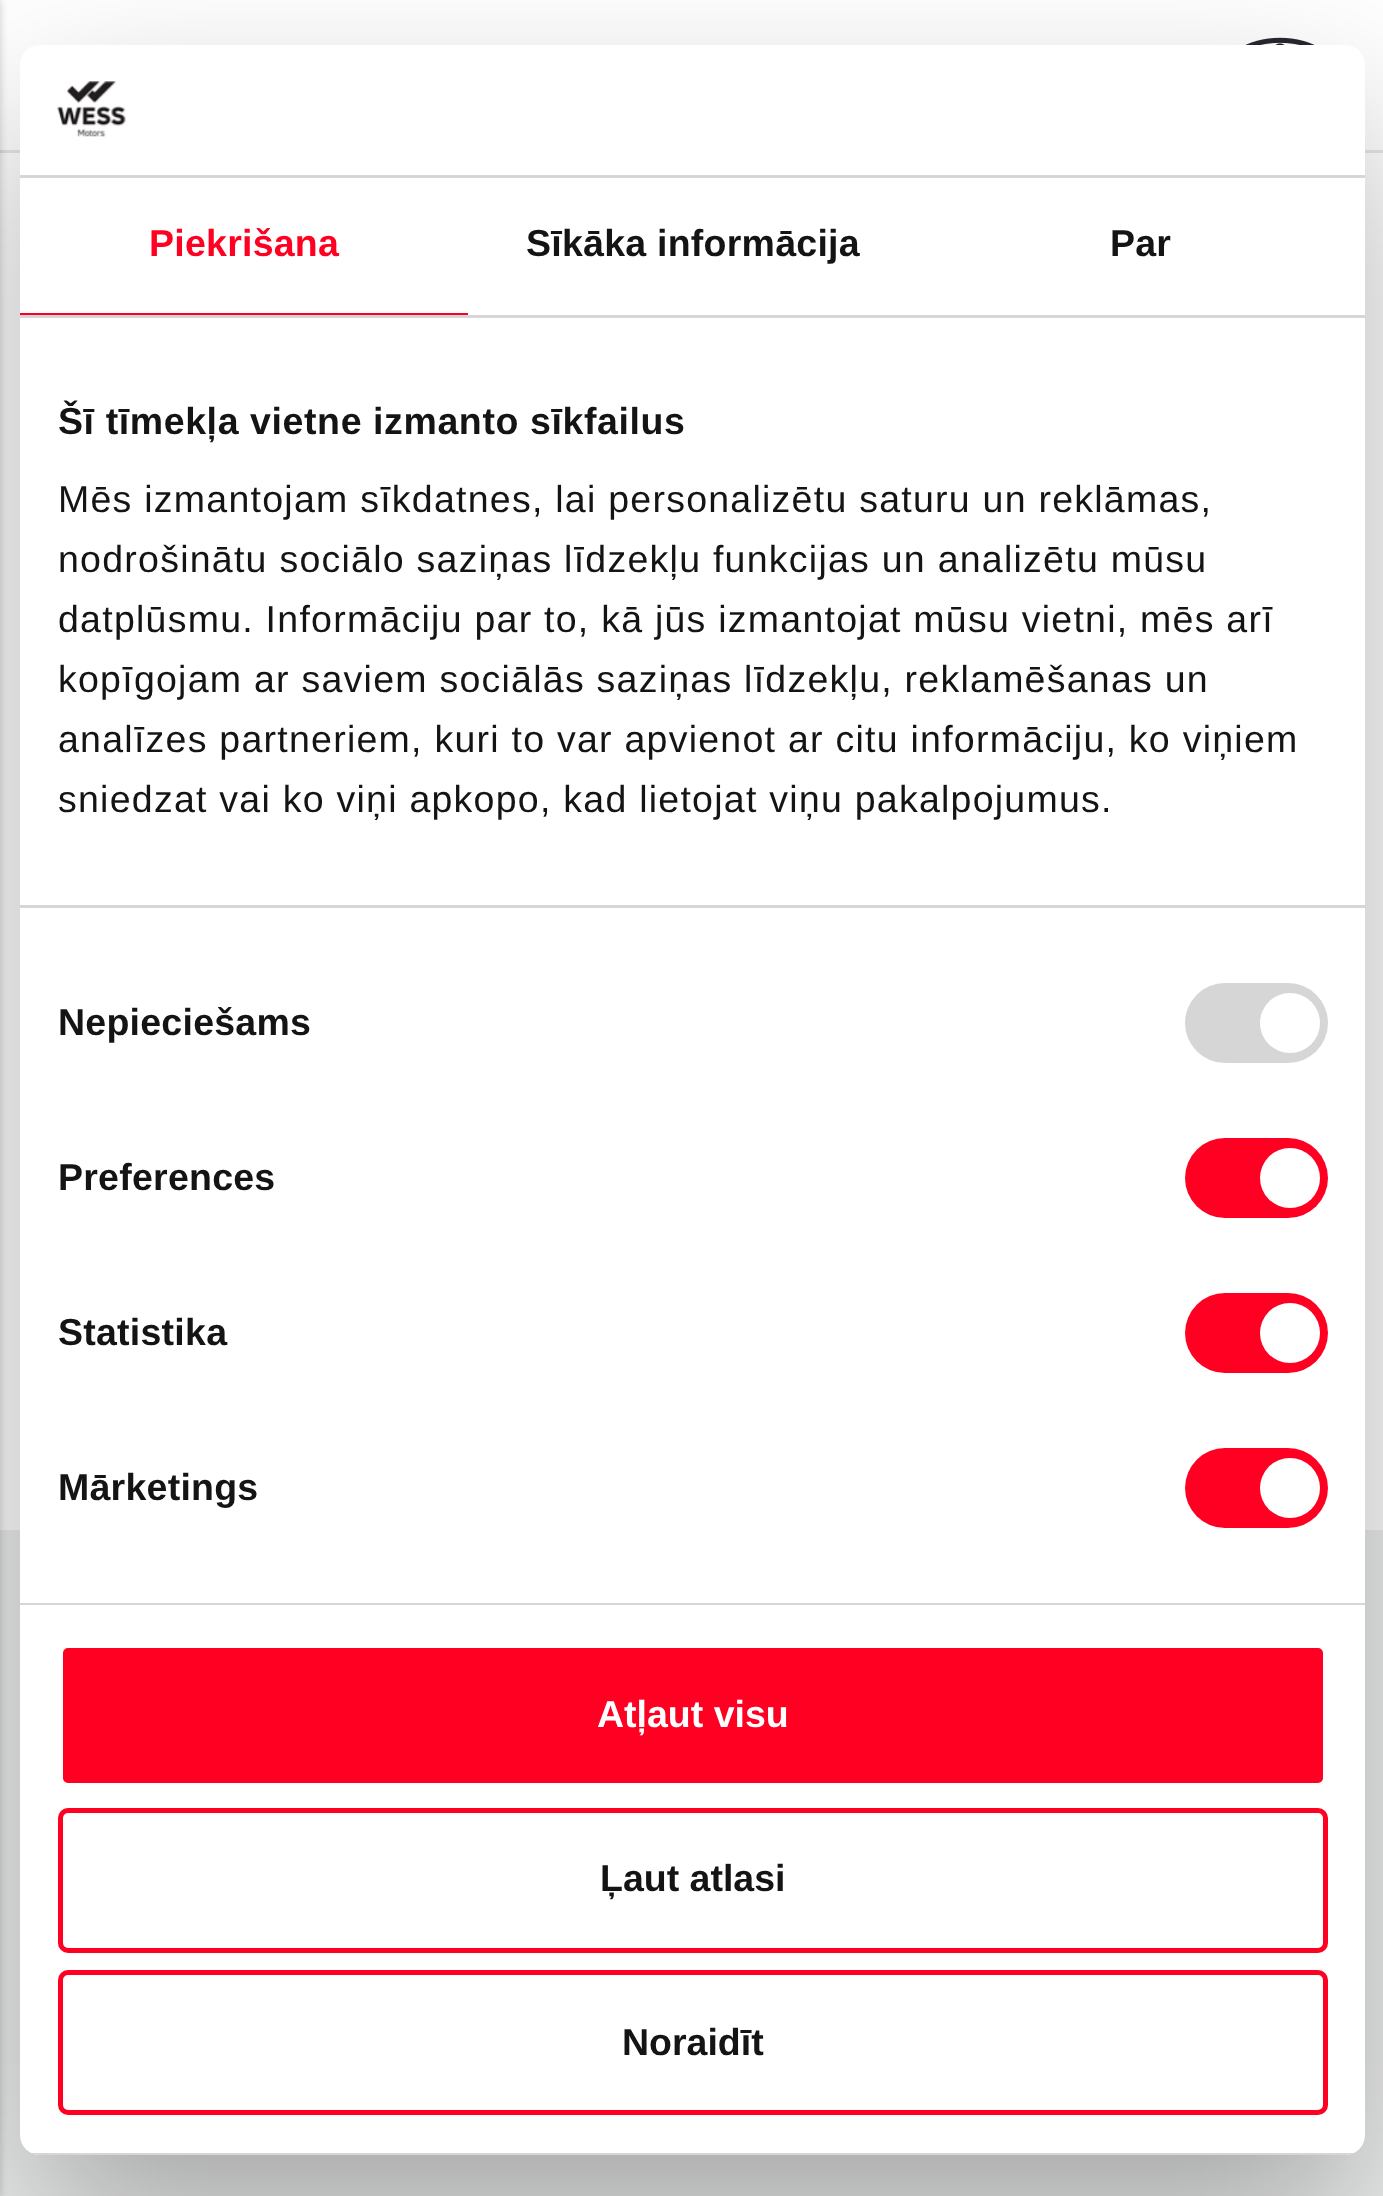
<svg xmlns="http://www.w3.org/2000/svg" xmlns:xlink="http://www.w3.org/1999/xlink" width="1383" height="2196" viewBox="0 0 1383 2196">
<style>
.cls-1{font:bold 37.5px Liberation Sans;letter-spacing:0.25px;fill:#ff0022}
.cls-2{font:bold 37.5px Liberation Sans;letter-spacing:0.25px;fill:#141414}
.cls-3{font:bold 37.5px Liberation Sans;letter-spacing:0.6px;fill:#141414}
.cls-4{font:37.5px Liberation Sans;letter-spacing:1.25px;fill:#141414}
.cls-5{font:bold 37.5px Liberation Sans;fill:#ffffff}
.cls-6{font:bold 37.5px Liberation Sans;fill:#141414}
</style>
<defs>
<clipPath id="clip1"><rect x="20" y="45" width="1345" height="2110" rx="20"/></clipPath>
</defs>
<rect width="100%" height="100%" fill="#ffffff"/>
<rect fill="#e6e6e6" x="0" y="150" width="1383" height="3"/>
<rect fill="#eff0f0" x="0" y="1530" width="1383" height="666"/>
<rect fill="#000000" fill-opacity="0.2" filter="blur(4px)" x="-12" y="0" width="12" height="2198"/>
<image xlink:href="image0.png" x="1245" y="37" width="70" height="8"/>
<rect fill="#000000" fill-opacity="0.3" filter="blur(85px)" x="20" y="125" width="1345" height="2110" rx="20"/>
<rect fill="#ffffff" x="20" y="45" width="1345" height="2110" rx="20"/>
<rect fill="#d6d6d6" x="20" y="175" width="1345" height="3"/>
<image xlink:href="image1.png" x="57" y="81" width="69" height="56"/>
<rect fill="#d6d6d6" x="20" y="315" width="1345" height="3"/>
<rect fill="#ff0022" x="20" y="313" width="448" height="2"/>
<rect fill="#d6d6d6" x="20" y="905" width="1345" height="3"/>
<rect fill="#d6d6d6" x="20" y="1603" width="1345" height="2"/>
<rect fill="#d6d6d6" x="1185" y="983" width="143" height="80" rx="40"/>
<circle fill="#ffffff" cx="1290" cy="1023" r="30"/>
<rect fill="#ff0022" x="1185" y="1138" width="143" height="80" rx="40"/>
<circle fill="#ffffff" cx="1290" cy="1178" r="30"/>
<rect fill="#ff0022" x="1185" y="1293" width="143" height="80" rx="40"/>
<circle fill="#ffffff" cx="1290" cy="1333" r="30"/>
<rect fill="#ff0022" x="1185" y="1448" width="143" height="80" rx="40"/>
<circle fill="#ffffff" cx="1290" cy="1488" r="30"/>
<g clip-path="url(#clip1)">
<rect fill="#d6d6d6" x="31" y="2153" width="1323" height="2"/>
</g>
<rect fill="#ff0022" stroke="#ffffff" stroke-width="5" x="60.5" y="1645.5" width="1265" height="140" rx="7.5"/>
<rect fill="none" stroke="#ff0022" stroke-width="5" x="60.5" y="1810.5" width="1265" height="140" rx="7.5"/>
<rect fill="none" stroke="#ff0022" stroke-width="5" x="60.5" y="1972.5" width="1265" height="140" rx="7.5"/>
<text class="cls-1" x="149" y="256">Piekrišana</text>
<text class="cls-2" x="526" y="256">Sīkāka informācija</text>
<text class="cls-2" x="1110" y="256">Par</text>
<text class="cls-3" x="58" y="434">Šī tīmekļa vietne izmanto sīkfailus</text>
<text class="cls-4"><tspan x="58" y="512">Mēs izmantojam sīkdatnes, lai personalizētu saturu un reklāmas,</tspan><tspan x="58" y="572">nodrošinātu sociālo saziņas līdzekļu funkcijas un analizētu mūsu</tspan><tspan x="58" y="632">datplūsmu. Informāciju par to, kā jūs izmantojat mūsu vietni, mēs arī</tspan><tspan x="58" y="692">kopīgojam ar saviem sociālās saziņas līdzekļu, reklamēšanas un</tspan><tspan x="58" y="752">analīzes partneriem, kuri to var apvienot ar citu informāciju, ko viņiem</tspan><tspan x="58" y="812">sniedzat vai ko viņi apkopo, kad lietojat viņu pakalpojumus.</tspan></text>
<text class="cls-2" x="58" y="1035">Nepieciešams</text>
<text class="cls-2" x="58" y="1190">Preferences</text>
<text class="cls-2" x="58" y="1345">Statistika</text>
<text class="cls-2" x="58" y="1500">Mārketings</text>
<text class="cls-5" x="597" y="1727">Atļaut visu</text>
<text class="cls-6" x="600" y="1891">Ļaut atlasi</text>
<text class="cls-6" x="622" y="2055">Noraidīt</text>
</svg>
